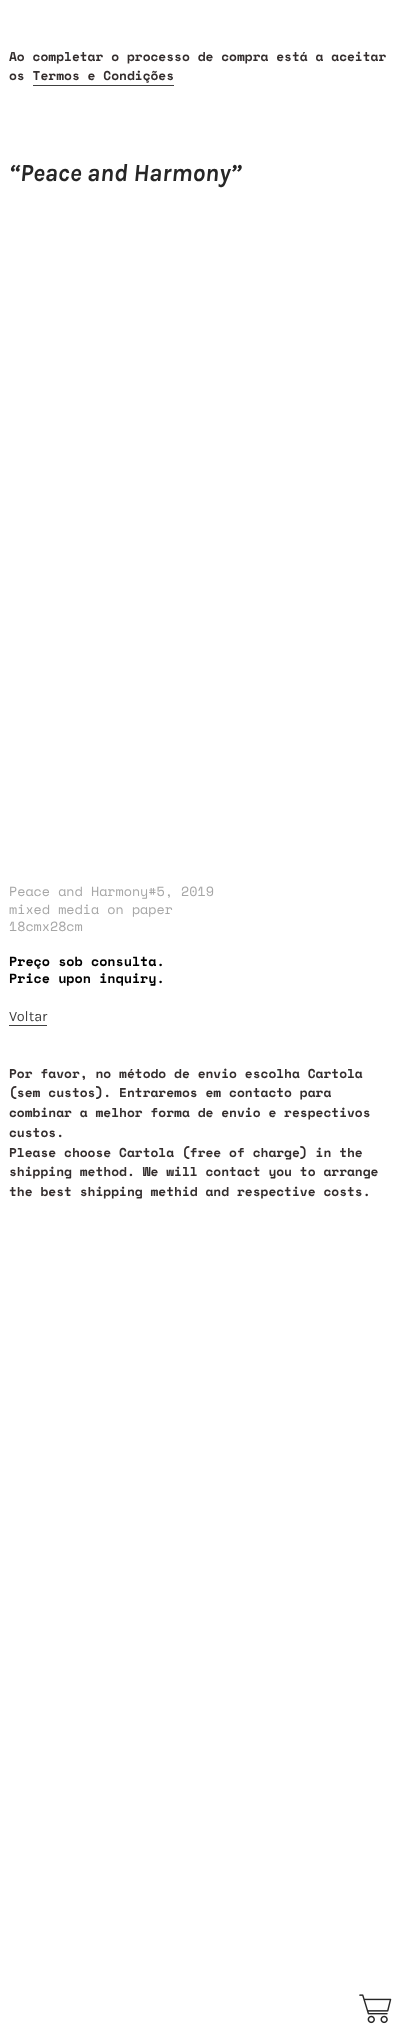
<svg xmlns="http://www.w3.org/2000/svg" xmlns:xlink="http://www.w3.org/1999/xlink" width="402" height="2035" viewBox="0 0 402 2035">
<style>
.cls-1{font:bold 12.85px Space Mono;fill:#342e2e}
.cls-2{font:italic bold 24.75px Karla;fill:#262626}
.cls-3{font:13.4px Space Mono;fill:#a6a6a6}
.cls-4{font:bold 13.4px Space Mono;fill:#000000}
.cls-5{font:14.5px Karla;fill:#404040}
</style>
<rect width="100%" height="100%" fill="#ffffff"/>
<rect fill="#404040" x="33" y="85" width="141" height="1"/>
<rect fill="#404040" x="9" y="1025" width="38" height="1"/>
<image xlink:href="image0.png" x="359" y="1994" width="33" height="30"/>
<text class="cls-1"><tspan x="9" y="61">Ao completar o processo de compra está a aceitar</tspan><tspan x="9" y="80">os Termos e Condições</tspan></text>
<text class="cls-2" x="9" y="181">“Peace and Harmony”</text>
<text class="cls-3"><tspan x="9" y="896">Peace and Harmony#5, 2019</tspan><tspan x="9" y="914">mixed media on paper</tspan><tspan x="9" y="931">18cmx28cm</tspan></text>
<text class="cls-4"><tspan x="9" y="966">Preço sob consulta.</tspan><tspan x="9" y="983">Price upon inquiry.</tspan></text>
<text class="cls-5" x="9" y="1021">Voltar</text>
<text class="cls-1"><tspan x="9" y="1078">Por favor, no método de envio escolha Cartola</tspan><tspan x="9" y="1097">(sem custos). Entraremos em contacto para</tspan><tspan x="9" y="1117">combinar a melhor forma de envio e respectivos</tspan><tspan x="9" y="1137">custos.</tspan><tspan x="9" y="1157">Please choose Cartola (free of charge) in the</tspan><tspan x="9" y="1176">shipping method. We will contact you to arrange</tspan><tspan x="9" y="1196">the best shipping methid and respective costs.</tspan></text>
</svg>
